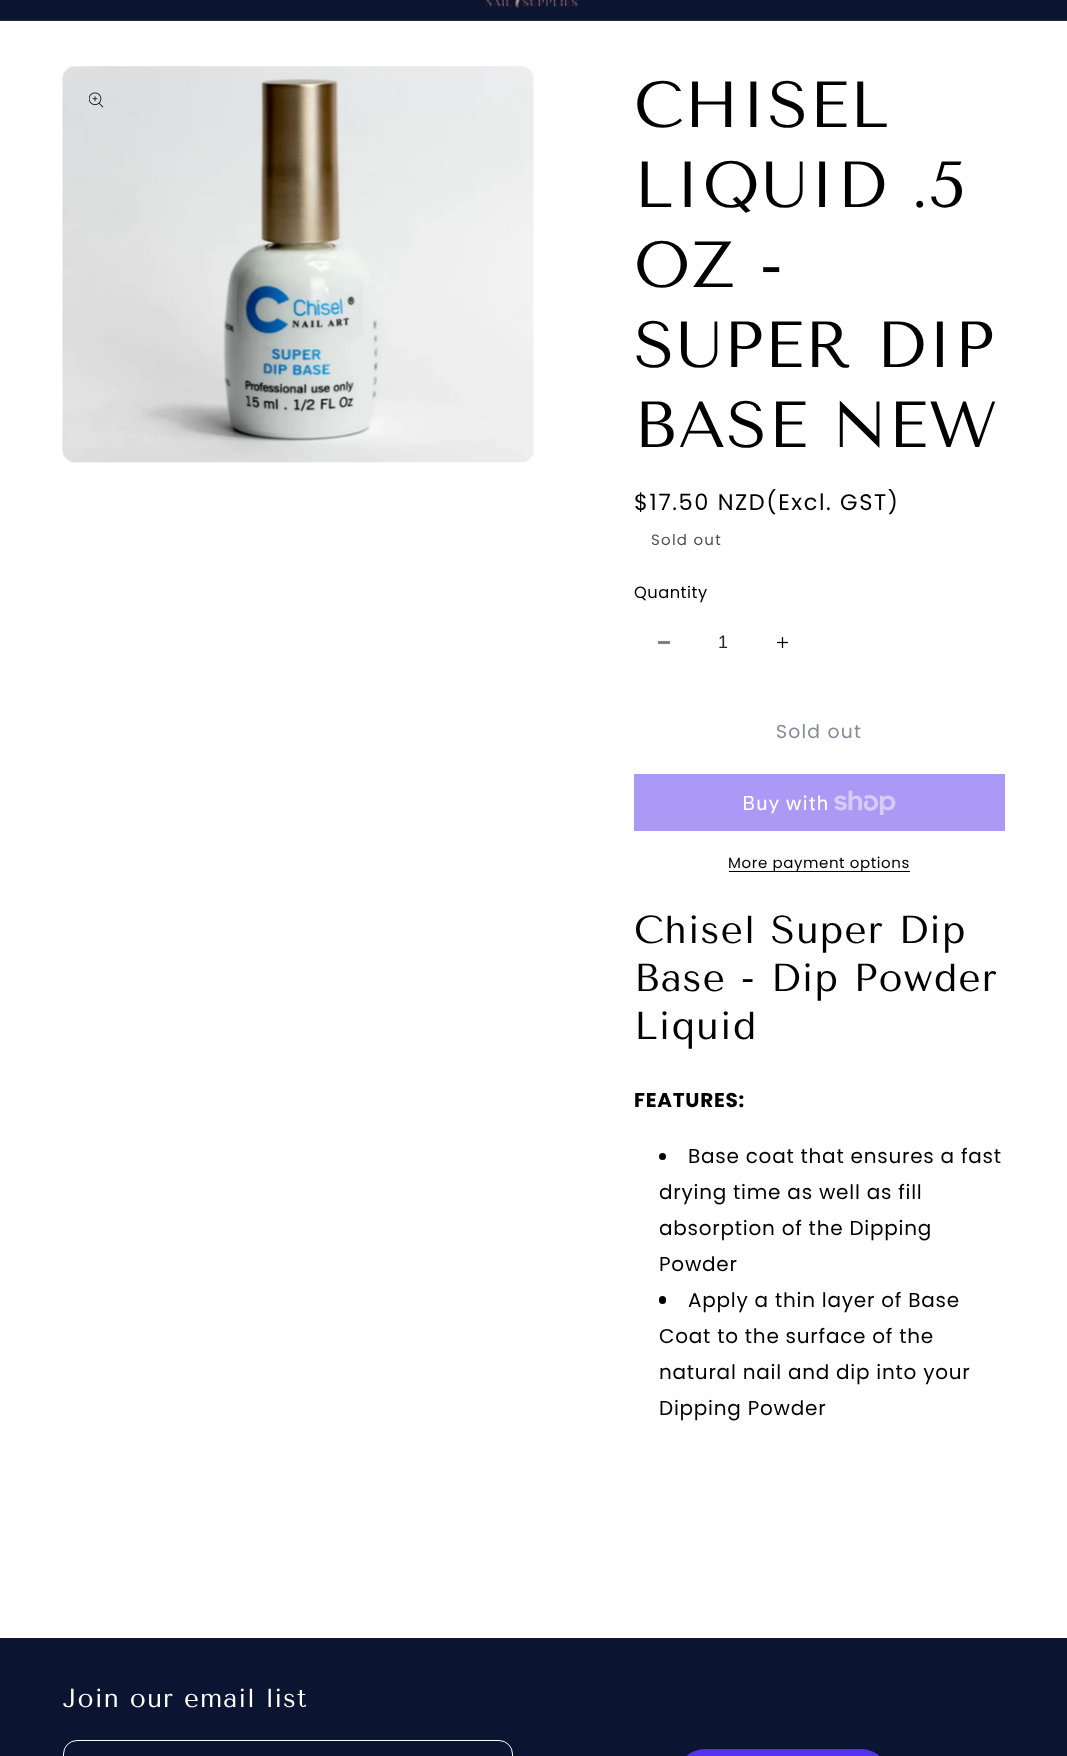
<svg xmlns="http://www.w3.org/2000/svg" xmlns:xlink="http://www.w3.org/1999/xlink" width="1067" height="1756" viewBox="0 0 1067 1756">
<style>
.cls-1{font:65px Tenor Sans;letter-spacing:1px;fill:#000000}
.cls-2{font:22.5px Poppins;letter-spacing:1.6px;fill:#000000}
.cls-3{font:15px Poppins;letter-spacing:1.25px;fill:#505050}
.cls-4{font:16.25px Poppins;letter-spacing:0.5px;fill:#000000}
.cls-5{font:18px Liberation Sans;fill:#262626}
.cls-6{font:18.75px Poppins;letter-spacing:1.25px;fill:#858a98}
.cls-7{font:20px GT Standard;letter-spacing:0.75px;fill:#ffffff}
.cls-8{font:15px Poppins;letter-spacing:0.6px;fill:#000000}
.cls-9{font:39px Tenor Sans;letter-spacing:1px;fill:#000000}
.cls-10{font:bold 20px Poppins;letter-spacing:0.75px;fill:#000000}
.cls-11{font:20px Poppins;letter-spacing:0.75px;fill:#000000}
.cls-12{font:26px Tenor Sans;letter-spacing:1px;fill:#ffffff}
</style>
<rect width="100%" height="100%" fill="#ffffff"/>
<rect fill="#0b1431" x="0" y="0" width="1067" height="20"/>
<rect fill="#1f2741" x="0" y="20" width="1067" height="1"/>
<image xlink:href="image0.png" x="485" y="0" width="93" height="8"/>
<image xlink:href="image1.png" x="62" y="66" width="472" height="397"/>
<image xlink:href="image2.png" x="89" y="92" width="15" height="16"/>
<rect fill="#808080" x="658" y="641" width="12" height="3"/>
<image xlink:href="image3.png" x="776" y="636" width="13" height="13"/>
<rect fill="#aa99f5" x="634" y="774" width="371" height="57"/>
<image xlink:href="image4.png" x="834" y="790" width="62" height="25"/>
<rect fill="#000000" x="729" y="871" width="181" height="1"/>
<circle fill="#000000" cx="662.5" cy="1156.5" r="3.5"/>
<rect fill="#000000" x="659" y="1296" width="7" height="8" rx="3.5"/>
<rect fill="#0b1431" x="0" y="1638" width="1067" height="118"/>
<rect fill="none" stroke="#ffffff" x="63.5" y="1740.5" width="449" height="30" rx="13.5"/>
<rect fill="#5433eb" x="683" y="1749" width="200" height="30" rx="22.5"/>
<text class="cls-1"><tspan x="634" y="127">CHISEL</tspan><tspan x="634" y="207">LIQUID .5</tspan><tspan x="634" y="287">OZ -</tspan><tspan x="634" y="367">SUPER DIP</tspan><tspan x="634" y="447">BASE NEW</tspan></text>
<text class="cls-2" x="634" y="510">$17.50 NZD(Excl. GST)</text>
<text class="cls-3" x="651" y="545">Sold out</text>
<text class="cls-4" x="634" y="598">Quantity</text>
<text class="cls-5" x="718" y="648">1</text>
<text class="cls-6" x="776" y="738">Sold out</text>
<text class="cls-7" x="742" y="810">Buy with</text>
<text class="cls-8" x="728" y="868">More payment options</text>
<text class="cls-9"><tspan x="634" y="943">Chisel Super Dip</tspan><tspan x="634" y="991">Base - Dip Powder</tspan><tspan x="634" y="1039">Liquid</tspan></text>
<text class="cls-10" x="634" y="1107">FEATURES:</text>
<text class="cls-11" x="688" y="1163">Base coat that ensures a fast</text>
<text class="cls-11"><tspan x="659" y="1199">drying time as well as fill</tspan><tspan x="659" y="1235">absorption of the Dipping</tspan><tspan x="659" y="1271">Powder</tspan></text>
<text class="cls-11" x="688" y="1307">Apply a thin layer of Base</text>
<text class="cls-11"><tspan x="659" y="1343">Coat to the surface of the</tspan><tspan x="659" y="1379">natural nail and dip into your</tspan><tspan x="659" y="1415">Dipping Powder</tspan></text>
<text class="cls-12" x="63" y="1707">Join our email list</text>
</svg>
